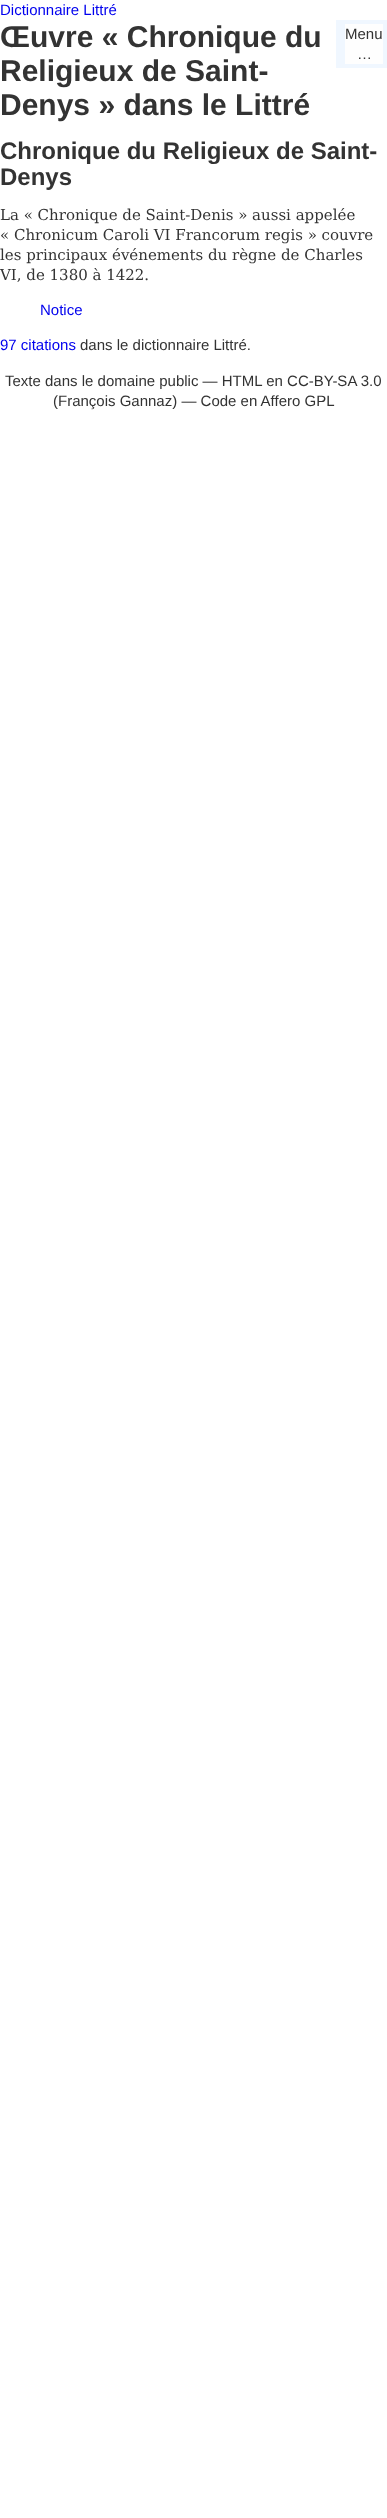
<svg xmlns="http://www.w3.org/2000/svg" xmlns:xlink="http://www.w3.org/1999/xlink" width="387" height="2518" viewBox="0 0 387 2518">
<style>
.cls-1{font:15px Liberation Sans;fill:#0000ee}
.cls-2{font:bold 30px Liberation Sans;fill:#333333}
.cls-3{font:bold 24px Liberation Sans;fill:#333333}
.cls-4{font:15px DejaVu Serif;fill:#333333}
.cls-5{font:15px Liberation Sans;fill:#333333}
</style>
<rect width="100%" height="100%" fill="#ffffff"/>
<rect fill="#f0f7ff" x="336" y="20" width="51" height="48"/>
<rect fill="#fefefe" x="345" y="24" width="38" height="40"/>
<text class="cls-1" x="0" y="15">Dictionnaire Littré</text>
<text class="cls-2"><tspan x="0" y="47">Œuvre « Chronique du</tspan><tspan x="0" y="81">Religieux de Saint-</tspan><tspan x="0" y="115">Denys » dans le Littré</tspan></text>
<text class="cls-3"><tspan x="0" y="159">Chronique du Religieux de Saint-</tspan><tspan x="0" y="185">Denys</tspan></text>
<text class="cls-4"><tspan x="0" y="220">La « Chronique de Saint-Denis » aussi appelée</tspan><tspan x="0" y="240">« Chronicum Caroli VI Francorum regis » couvre</tspan><tspan x="0" y="260">les principaux événements du règne de Charles</tspan><tspan x="0" y="280">VI, de 1380 à 1422.</tspan></text>
<text class="cls-1" x="40" y="315">Notice</text>
<text class="cls-1" x="0" y="350">97 citations</text>
<text class="cls-5" x="80" y="350">dans le dictionnaire Littré.</text>
<text class="cls-5" x="345" y="39">Menu</text>
<text class="cls-5" x="357" y="59">…</text>
<text class="cls-5" x="5" y="386">Texte dans le domaine public — HTML en CC-BY-SA 3.0</text>
<text class="cls-5" x="53" y="406">(François Gannaz) — Code en Affero GPL</text>
</svg>
